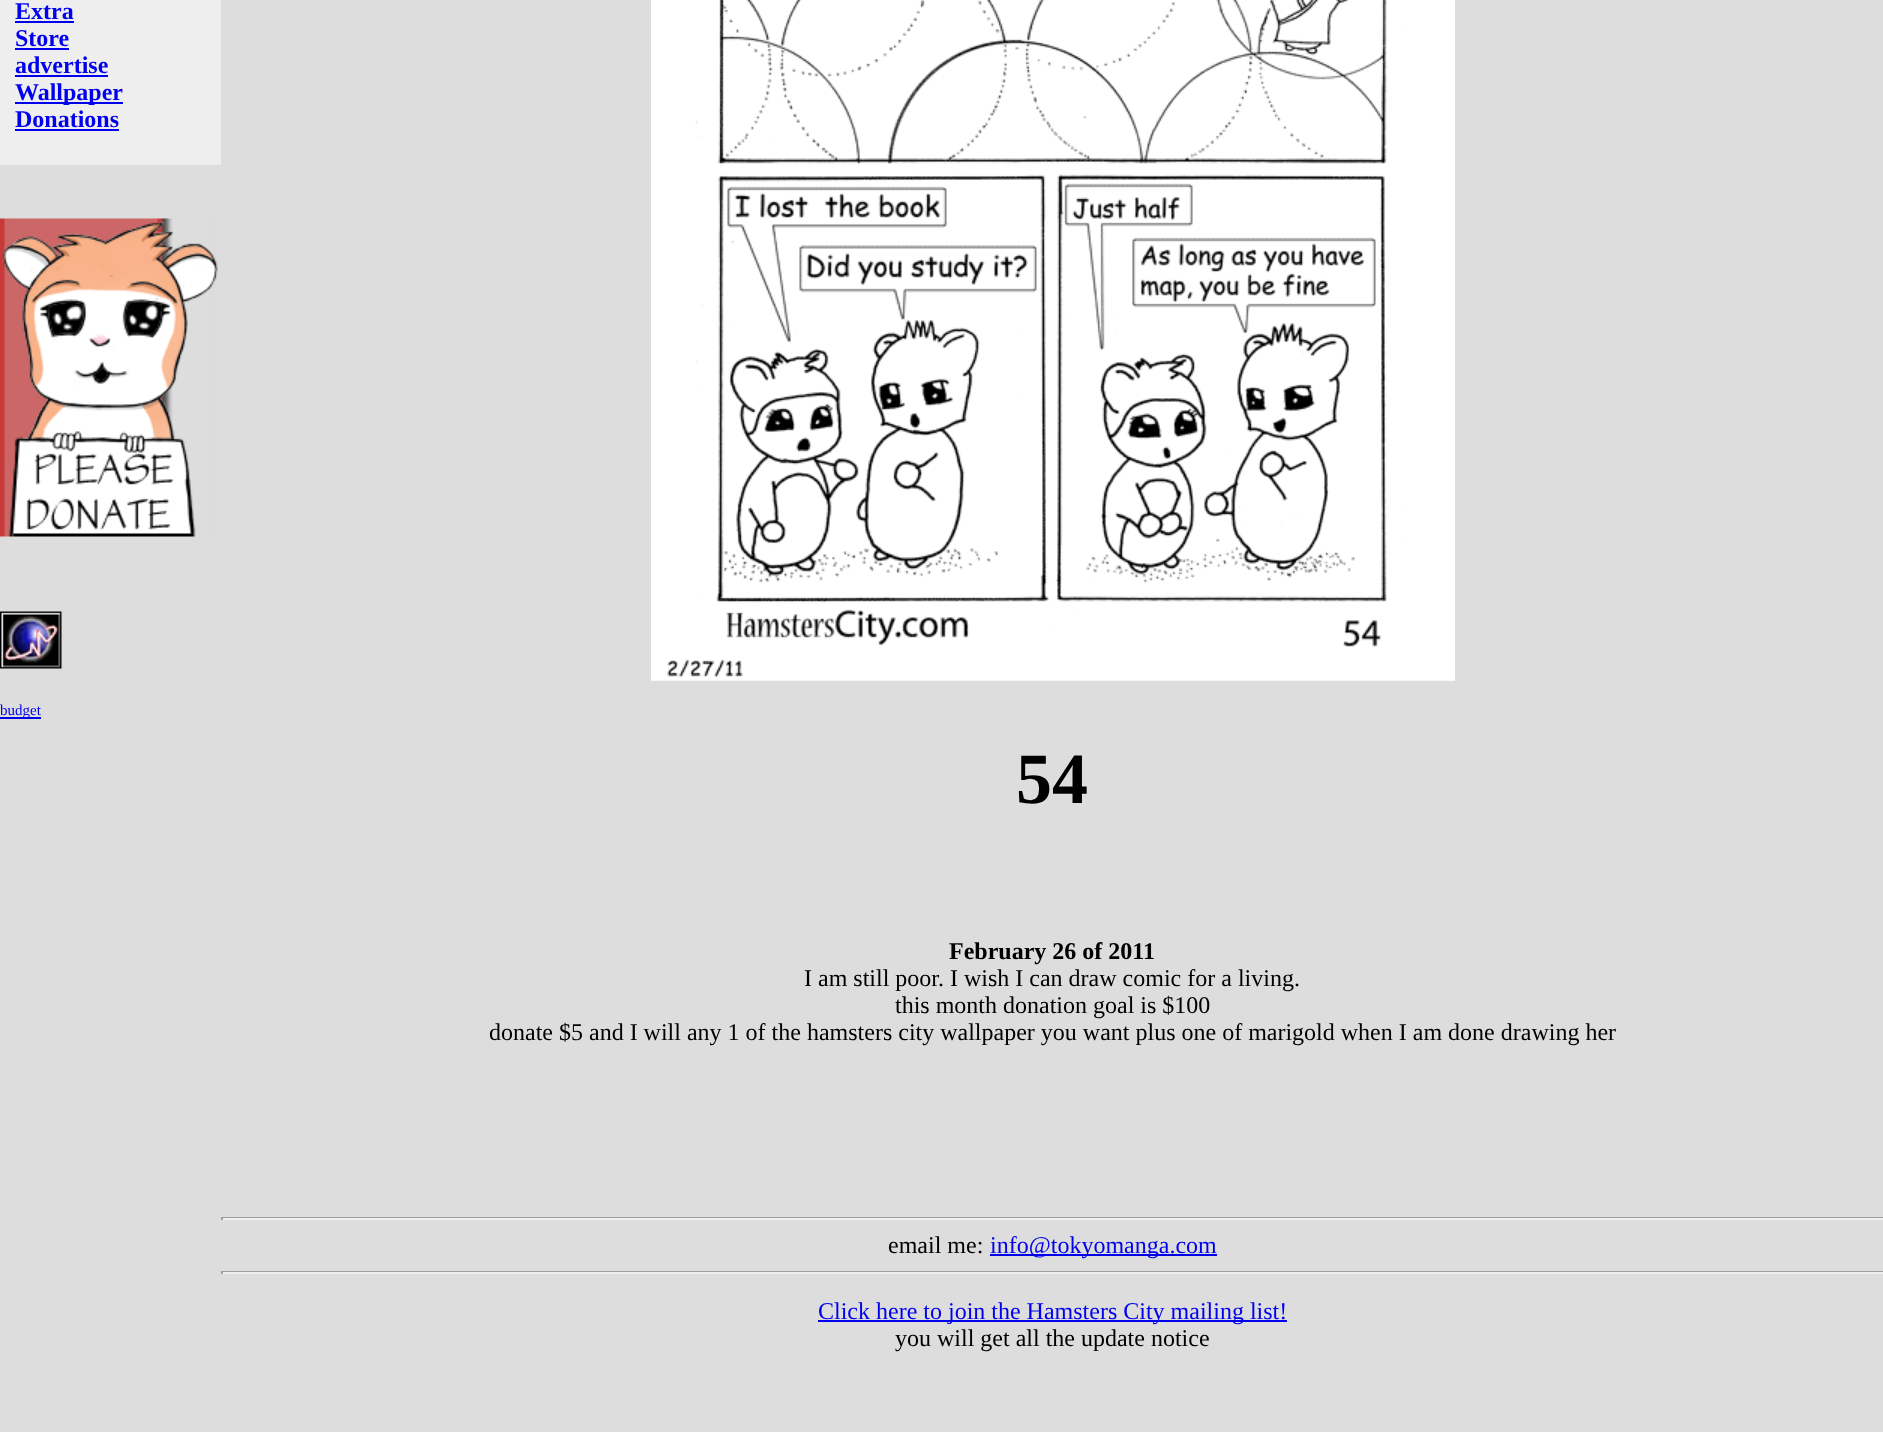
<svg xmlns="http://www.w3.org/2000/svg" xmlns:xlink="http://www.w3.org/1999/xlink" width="1883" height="1432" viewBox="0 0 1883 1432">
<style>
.cls-1{font:bold 24px Liberation Serif;fill:#0000ee}
.cls-2{font:15px Liberation Serif;fill:#0000ee}
.cls-3{font:bold 72px Liberation Serif;fill:#000000}
.cls-4{font:bold 24px Liberation Serif;fill:#000000}
.cls-5{font:24px Liberation Serif;fill:#000000}
.cls-6{font:24px Liberation Serif;fill:#0000ee}
</style>
<rect width="100%" height="100%" fill="#dddddd"/>
<rect fill="#eeeeee" x="0" y="0" width="221" height="165"/>
<rect fill="#0000ee" x="15" y="21" width="59" height="2"/>
<rect fill="#0000ee" x="15" y="48" width="54" height="2"/>
<rect fill="#0000ee" x="15" y="75" width="93" height="2"/>
<rect fill="#0000ee" x="15" y="102" width="108" height="2"/>
<rect fill="#0000ee" x="15" y="129" width="104" height="2"/>
<image xlink:href="image0.png" x="0" y="218" width="218" height="319"/>
<image xlink:href="image1.png" x="0" y="611" width="62" height="58"/>
<rect fill="#0000ee" x="0" y="717" width="41" height="2"/>
<rect fill="#eeeeee" x="651" y="680" width="804" height="1"/>
<image xlink:href="image2.png" x="651" y="0" width="804" height="681"/>
<rect fill="#9f9f9f" x="221" y="1217" width="1662" height="1"/>
<rect fill="#eeeeee" x="221" y="1218" width="1662" height="2"/>
<rect fill="#9f9f9f" x="221" y="1217" width="2" height="3"/>
<rect fill="#0000ee" x="990" y="1254" width="227" height="2"/>
<rect fill="#9f9f9f" x="221" y="1271" width="1662" height="1"/>
<rect fill="#eeeeee" x="221" y="1272" width="1662" height="2"/>
<rect fill="#9f9f9f" x="221" y="1271" width="2" height="3"/>
<rect fill="#0000ee" x="818" y="1320" width="469" height="2"/>
<text class="cls-1"><tspan x="15" y="19">Extra</tspan><tspan x="15" y="46">Store</tspan><tspan x="15" y="73">advertise</tspan><tspan x="15" y="100">Wallpaper</tspan><tspan x="15" y="127">Donations</tspan></text>
<text class="cls-2" x="0" y="715">budget</text>
<text class="cls-3" x="1016" y="803">54</text>
<text class="cls-4" x="949" y="959">February 26 of 2011</text>
<text class="cls-5" x="804" y="986">I am still poor. I wish I can draw comic for a living.</text>
<text class="cls-5" x="895" y="1013">this month donation goal is $100</text>
<text class="cls-5" x="489" y="1040">donate $5 and I will any 1 of the hamsters city wallpaper you want plus one of marigold when I am done drawing her</text>
<text class="cls-5" x="888" y="1253">email me:</text>
<text class="cls-6" x="990" y="1253">info@tokyomanga.com</text>
<text class="cls-6" x="818" y="1319">Click here to join the Hamsters City mailing list!</text>
<text class="cls-5" x="895" y="1346">you will get all the update notice</text>
</svg>
